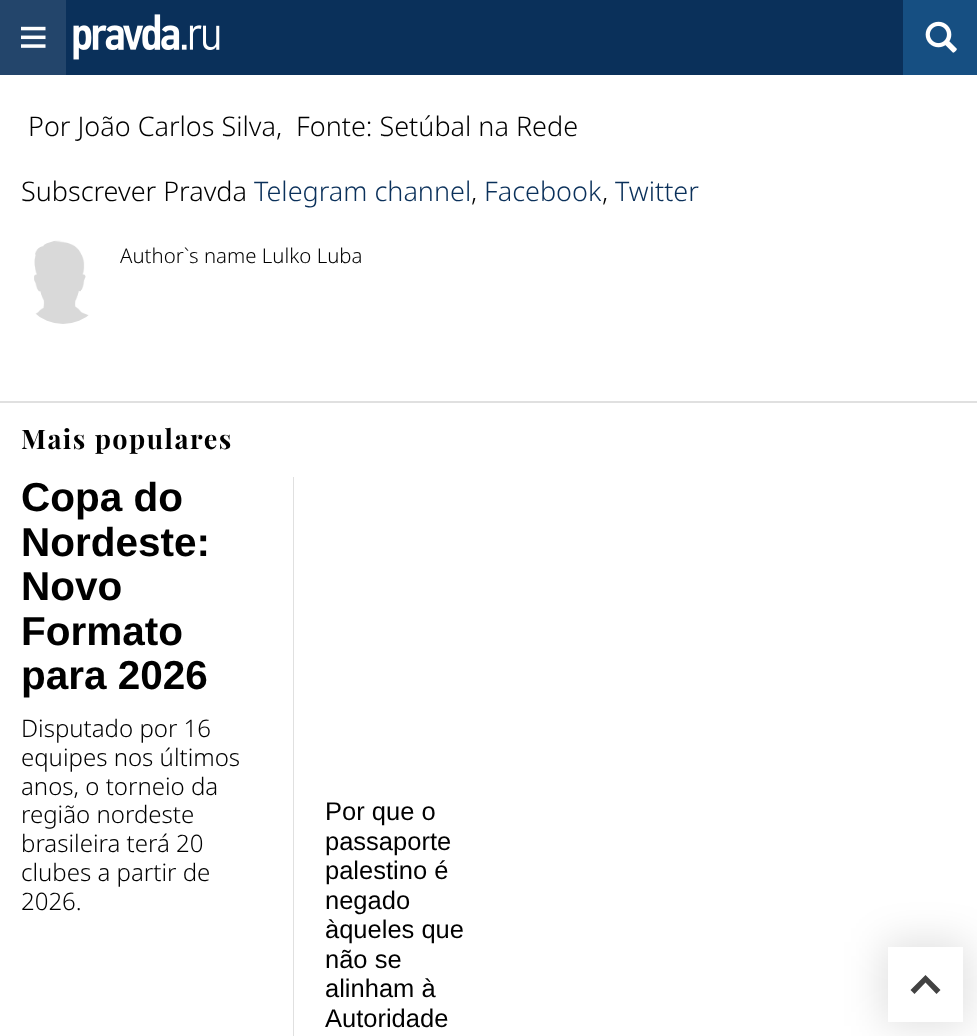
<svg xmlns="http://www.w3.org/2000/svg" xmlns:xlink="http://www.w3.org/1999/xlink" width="977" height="1036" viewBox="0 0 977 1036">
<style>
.cls-1{font:300 27px Noto Sans;fill:#000000}
.cls-2{font:300 27px Noto Sans;fill:#0a305a}
.cls-3{font:300 20.4px Noto Sans;fill:#000000}
.cls-4{font:bold 27px Playfair Display;letter-spacing:1.5px;fill:#000000}
.cls-5{font:bold 40.5px Liberation Sans;fill:#000000}
.cls-6{font:300 24px Noto Sans;fill:#000000}
.cls-7{font:25.5px Liberation Sans;fill:#000000}
</style>
<rect width="100%" height="100%" fill="#ffffff"/>
<rect fill="#0a305a" x="66" y="0" width="837" height="75"/>
<rect fill="#23456b" x="0" y="0" width="66" height="75"/>
<image xlink:href="image0.png" x="21" y="26" width="25" height="22"/>
<image xlink:href="image1.png" x="73" y="14" width="147" height="46"/>
<rect fill="#164f82" x="903" y="0" width="74" height="75"/>
<image xlink:href="image2.png" x="925" y="21" width="32" height="32"/>
<rect fill="#e0e0e0" x="0" y="401" width="977" height="2"/>
<image xlink:href="image3.png" x="34" y="240" width="55" height="84"/>
<rect fill="#e0e0e0" x="293" y="477" width="1" height="559"/>
<rect fill="#000000" fill-opacity="0.13" filter="blur(20px)" x="884" y="942" width="84" height="84"/>
<rect fill="#ffffff" x="888" y="947" width="75" height="75"/>
<path fill="#424242" d="M925.5 975L940.5 990L936.5 994L925.5 982.5L914.5 994L910.5 990Z"/>
<text class="cls-1" xml:space="preserve" x="28" y="136">Por João Carlos Silva,  Fonte: Setúbal na Rede</text>
<text class="cls-1" x="21" y="201">Subscrever Pravda</text>
<text class="cls-2" x="254" y="201">Telegram channel</text>
<text class="cls-1" x="471" y="201">,</text>
<text class="cls-2" x="484" y="201">Facebook</text>
<text class="cls-1" x="602" y="201">,</text>
<text class="cls-2" x="615" y="201">Twitter</text>
<text class="cls-3" x="120" y="263">Author`s name Lulko Luba</text>
<text class="cls-4" x="21" y="449">Mais populares</text>
<text class="cls-5"><tspan x="21" y="511">Copa do</tspan><tspan x="21" y="556">Nordeste:</tspan><tspan x="21" y="600">Novo</tspan><tspan x="21" y="645">Formato</tspan><tspan x="21" y="689">para 2026</tspan></text>
<text class="cls-6"><tspan x="21" y="737">Disputado por 16</tspan><tspan x="21" y="766">equipes nos últimos</tspan><tspan x="21" y="795">anos, o torneio da</tspan><tspan x="21" y="823">região nordeste</tspan><tspan x="21" y="852">brasileira terá 20</tspan><tspan x="21" y="881">clubes a partir de</tspan><tspan x="21" y="910">2026.</tspan></text>
<text class="cls-7"><tspan x="325" y="820">Por que o</tspan><tspan x="325" y="850">passaporte</tspan><tspan x="325" y="879">palestino é</tspan><tspan x="325" y="909">negado</tspan><tspan x="325" y="938">àqueles que</tspan><tspan x="325" y="968">não se</tspan><tspan x="325" y="997">alinham à</tspan><tspan x="325" y="1027">Autoridade</tspan></text>
</svg>
